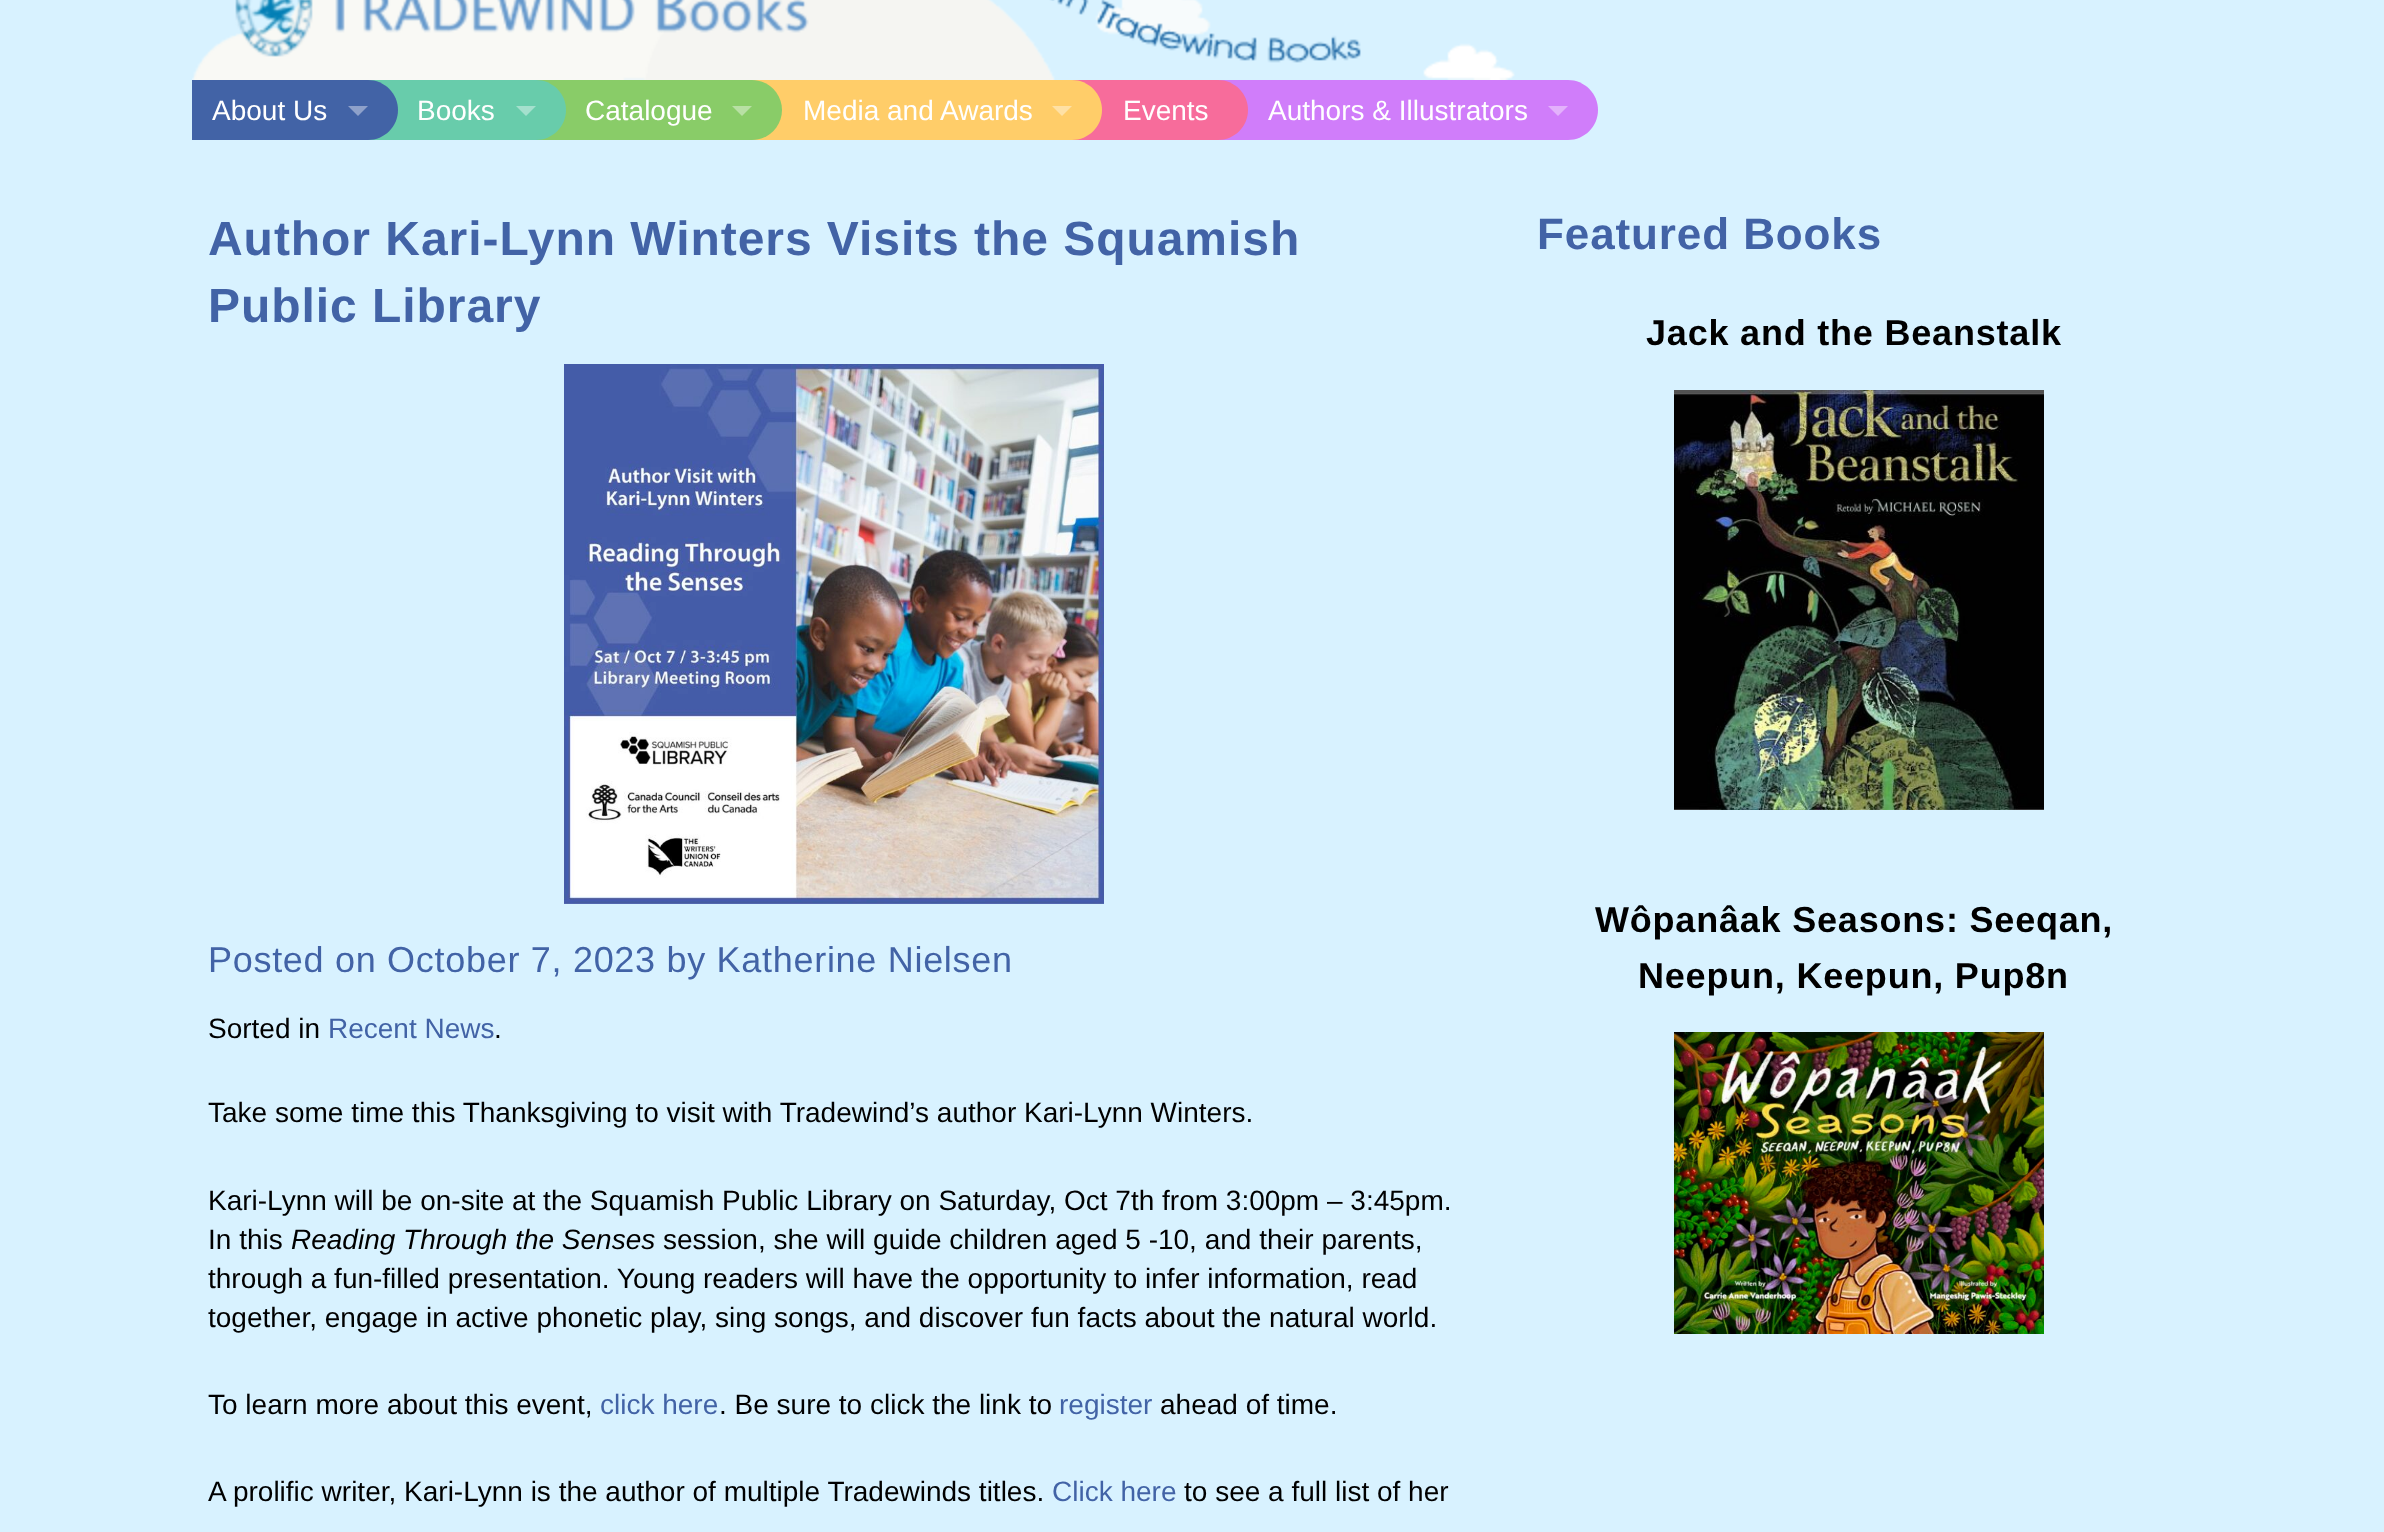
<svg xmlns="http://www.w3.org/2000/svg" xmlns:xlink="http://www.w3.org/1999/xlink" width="2384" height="1532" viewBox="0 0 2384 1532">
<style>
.cls-1{font:28px Liberation Sans;fill:#ffffff}
.cls-2{font:bold 48px Liberation Sans;letter-spacing:0.95px;fill:#4263a6}
.cls-3{font:36px Liberation Sans;letter-spacing:0.7px;fill:#4263a6}
.cls-4{font:28px Liberation Sans;fill:#000000}
.cls-5{font:28px Liberation Sans;fill:#4263a6}
.cls-6{font:italic 28px Liberation Sans;fill:#000000}
.cls-7{font:bold 44px Liberation Sans;letter-spacing:0.9px;fill:#4263a6}
.cls-8{font:bold 36px Liberation Sans;letter-spacing:0.8px;fill:#000000}
</style>
<rect width="100%" height="100%" fill="#d8f2ff"/>
<image xlink:href="image0.png" x="192" y="0" width="1323" height="80"/>
<image xlink:href="image1.png" x="235" y="0" width="574" height="57"/>
<path fill="#d07dfa" d="M1208 80H1568C1584.5 80 1598 93.5 1598 110C1598 126.5 1584.5 140 1568 140H1208Z"/>
<path fill="#f76c9b" d="M1062 80H1218C1234.5 80 1248 93.5 1248 110C1248 126.5 1234.5 140 1218 140H1062Z"/>
<path fill="#ffcd69" d="M742 80H1072C1088.5 80 1102 93.5 1102 110C1102 126.5 1088.5 140 1072 140H742Z"/>
<path fill="#89cc68" d="M526 80H752C768.5 80 782 93.5 782 110C782 126.5 768.5 140 752 140H526Z"/>
<path fill="#68ccab" d="M358 80H536C552.5 80 566 93.5 566 110C566 126.5 552.5 140 536 140H358Z"/>
<path fill="#4263a6" d="M192 80H368C384.5 80 398 93.5 398 110C398 126.5 384.5 140 368 140H192Z"/>
<path fill="#8ea1ca" d="M348 106H368L358 116Z"/>
<path fill="#a4e0cd" d="M516 106H536L526 116Z"/>
<path fill="#b8e0a4" d="M732 106H752L742 116Z"/>
<path fill="#ffe1a5" d="M1052 106H1072L1062 116Z"/>
<path fill="#e3b1fc" d="M1548 106H1568L1558 116Z"/>
<image xlink:href="image2.png" x="564" y="364" width="540" height="540"/>
<image xlink:href="image3.png" x="1674" y="390" width="370" height="420"/>
<image xlink:href="image4.png" x="1674" y="1032" width="370" height="302"/>
<text class="cls-1" x="212" y="120">About Us</text>
<text class="cls-1" x="417" y="120">Books</text>
<text class="cls-1" x="585" y="120">Catalogue</text>
<text class="cls-1" x="803" y="120">Media and Awards</text>
<text class="cls-1" x="1123" y="120">Events</text>
<text class="cls-1" x="1268" y="120">Authors &amp; Illustrators</text>
<text class="cls-2"><tspan x="208" y="255">Author Kari-Lynn Winters Visits the Squamish</tspan><tspan x="208" y="322">Public Library</tspan></text>
<text class="cls-3" x="208" y="972">Posted on October 7, 2023 by Katherine Nielsen</text>
<text class="cls-4" x="208" y="1038">Sorted in</text>
<text class="cls-5" x="328" y="1038">Recent News</text>
<text class="cls-4" x="494" y="1038">.</text>
<text class="cls-4" x="208" y="1122">Take some time this Thanksgiving to visit with Tradewind’s author Kari-Lynn Winters.</text>
<text class="cls-4"><tspan x="208" y="1210">Kari-Lynn will be on-site at the Squamish Public Library on Saturday, Oct 7th from 3:00pm – 3:45pm.</tspan><tspan x="208" y="1249">In this</tspan></text>
<text class="cls-6" x="291" y="1249">Reading Through the Senses</text>
<text class="cls-4" x="663" y="1249">session, she will guide children aged 5 -10, and their parents,</text>
<text class="cls-4"><tspan x="208" y="1288">through a fun-filled presentation. Young readers will have the opportunity to infer information, read</tspan><tspan x="208" y="1327">together, engage in active phonetic play, sing songs, and discover fun facts about the natural world.</tspan></text>
<text class="cls-4" x="208" y="1414">To learn more about this event,</text>
<text class="cls-5" x="600" y="1414">click here</text>
<text class="cls-4" x="719" y="1414">. Be sure to click the link to</text>
<text class="cls-5" x="1059" y="1414">register</text>
<text class="cls-4" x="1160" y="1414">ahead of time.</text>
<text class="cls-4" x="208" y="1501">A prolific writer, Kari-Lynn is the author of multiple Tradewinds titles.</text>
<text class="cls-5" x="1052" y="1501">Click here</text>
<text class="cls-4" x="1184" y="1501">to see a full list of her</text>
<text class="cls-7" x="1537" y="249">Featured Books</text>
<text class="cls-8" x="1646" y="345">Jack and the Beanstalk</text>
<text class="cls-8" x="1595" y="932">Wôpanâak Seasons: Seeqan,</text>
<text class="cls-8" x="1638" y="988">Neepun, Keepun, Pup8n</text>
</svg>
